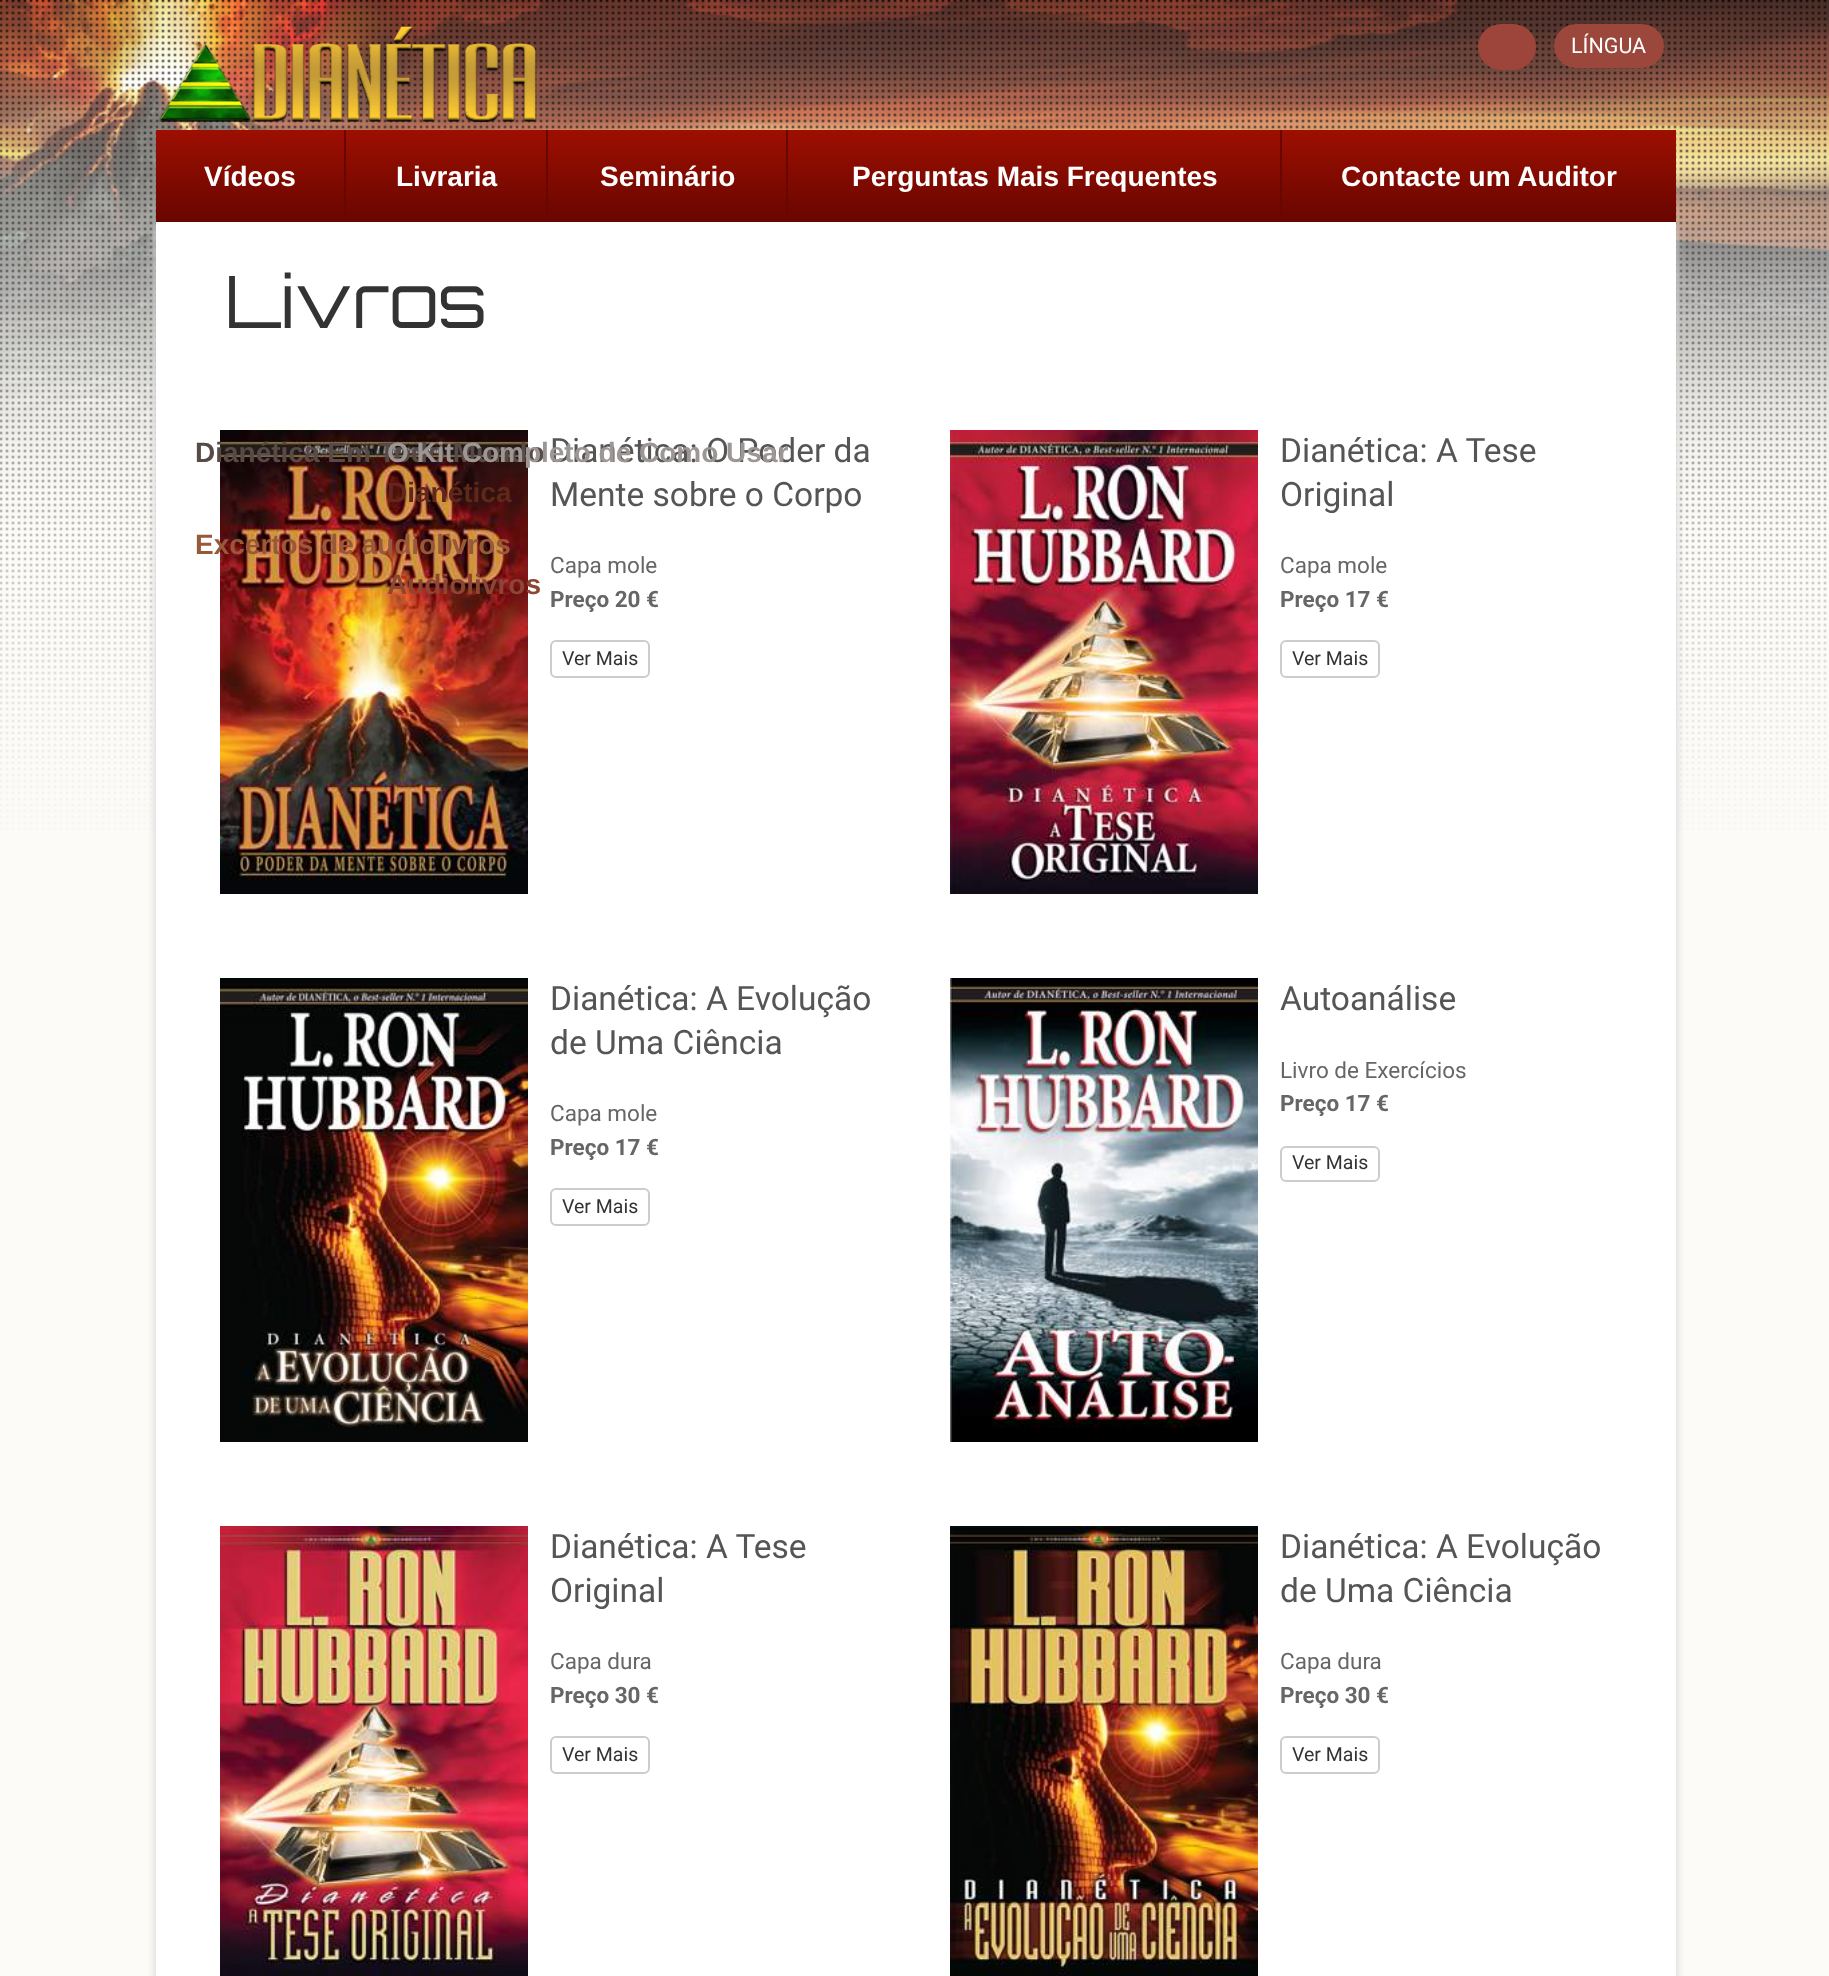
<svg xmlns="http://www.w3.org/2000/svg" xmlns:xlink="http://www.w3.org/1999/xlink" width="1829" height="1976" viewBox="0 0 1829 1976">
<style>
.cls-1{font:21.5px Roboto;fill:#ffffff}
.cls-2{font:bold 28px Liberation Sans;fill:#ffffff}
.cls-3{font:bold 28px Liberation Sans;fill:#584a46}
.cls-4{font:bold 28px Liberation Sans;fill:#98593a}
.cls-5{font:bold 28px Liberation Sans;fill:#5e291a}
.cls-6{font:bold 28px Liberation Sans;fill:#8e4634}
.cls-7{font:72px Orbitron;fill:#333333}
.cls-8{font:33.5px Roboto;fill:#555555}
.cls-9{font:bold 28px Liberation Sans;fill:#9c9694}
.cls-10{font:22.5px Roboto;fill:#666666}
.cls-11{font:bold 22.5px Roboto;fill:#666666}
.cls-12{font:19.5px Roboto;fill:#333333}
</style>
<defs>
<linearGradient id="g1" gradientUnits="userSpaceOnUse" x1="250" y1="130" x2="250" y2="222"><stop offset="0" stop-color="#9d0f01"/><stop offset="1" stop-color="#680600"/></linearGradient>
<linearGradient id="g2" gradientUnits="userSpaceOnUse" x1="446" y1="130" x2="446" y2="222"><stop offset="0" stop-color="#9d0f01"/><stop offset="1" stop-color="#680600"/></linearGradient>
<linearGradient id="g3" gradientUnits="userSpaceOnUse" x1="667" y1="130" x2="667" y2="222"><stop offset="0" stop-color="#9d0f01"/><stop offset="1" stop-color="#680600"/></linearGradient>
<linearGradient id="g4" gradientUnits="userSpaceOnUse" x1="1034" y1="130" x2="1034" y2="222"><stop offset="0" stop-color="#9d0f01"/><stop offset="1" stop-color="#680600"/></linearGradient>
<linearGradient id="g5" gradientUnits="userSpaceOnUse" x1="1479" y1="130" x2="1479" y2="222"><stop offset="0" stop-color="#9d0f01"/><stop offset="1" stop-color="#680600"/></linearGradient>
</defs>
<rect width="100%" height="100%" fill="#fdfbf7"/>
<image xlink:href="image0.png" x="0" y="0" width="1829" height="830"/>
<image xlink:href="image1.png" x="158" y="26" width="379" height="96"/>
<rect fill="#9d453b" x="1478" y="24" width="58" height="46" rx="23"/>
<rect fill="#9c473b" x="1554" y="24" width="110" height="44" rx="22"/>
<rect fill="#cccccc" filter="blur(5px)" x="156" y="226" width="1520" height="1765"/>
<rect fill="url(#g1)" x="156" y="130" width="188" height="92"/>
<rect fill="#680600" x="344" y="130" width="2" height="92"/>
<rect fill="url(#g2)" x="346" y="130" width="200" height="92"/>
<rect fill="#680600" x="546" y="130" width="2" height="92"/>
<rect fill="url(#g3)" x="548" y="130" width="238" height="92"/>
<rect fill="#680600" x="786" y="130" width="2" height="92"/>
<rect fill="url(#g4)" x="788" y="130" width="492" height="92"/>
<rect fill="#680600" x="1280" y="130" width="2" height="92"/>
<rect fill="url(#g5)" x="1282" y="130" width="394" height="92"/>
<rect fill="#ffffff" x="156" y="222" width="1520" height="1754"/>
<image xlink:href="image2.png" x="220" y="430" width="308" height="464"/>
<rect fill="none" stroke="#cccccc" stroke-width="2" x="551" y="641" width="98" height="36" rx="5"/>
<image xlink:href="image3.png" x="950" y="430" width="308" height="464"/>
<rect fill="none" stroke="#cccccc" stroke-width="2" x="1281" y="641" width="98" height="36" rx="5"/>
<image xlink:href="image4.png" x="220" y="978" width="308" height="464"/>
<rect fill="none" stroke="#cccccc" stroke-width="2" x="551" y="1189" width="98" height="36" rx="5"/>
<image xlink:href="image5.png" x="950" y="978" width="308" height="464"/>
<rect fill="none" stroke="#cccccc" stroke-width="2" x="1281" y="1147" width="98" height="34" rx="5"/>
<image xlink:href="image6.png" x="220" y="1526" width="308" height="450"/>
<rect fill="none" stroke="#cccccc" stroke-width="2" x="551" y="1737" width="98" height="36" rx="5"/>
<image xlink:href="image7.png" x="950" y="1526" width="308" height="450"/>
<rect fill="none" stroke="#cccccc" stroke-width="2" x="1281" y="1737" width="98" height="36" rx="5"/>
<text class="cls-1" x="1571" y="53">LÍNGUA</text>
<text class="cls-2" x="204" y="186">Vídeos</text>
<text class="cls-3" x="195" y="462">Dianética Em Todo Mundo</text>
<text class="cls-4" x="195" y="554">Excertos de audiolivros</text>
<text class="cls-2" x="396" y="186">Livraria</text>
<text class="cls-5" x="387" y="502">Dianética</text>
<text class="cls-6" x="387" y="594">Audiolivros</text>
<text class="cls-2" x="600" y="186">Seminário</text>
<text class="cls-2" x="852" y="186">Perguntas Mais Frequentes</text>
<text class="cls-2" x="1341" y="186">Contacte um Auditor</text>
<text class="cls-7" x="225" y="328">Livros</text>
<text class="cls-8" x="550" y="462">Dianética: O Poder da</text>
<text class="cls-9" x="387" y="462">O Kit Completo de Como Usar</text>
<text class="cls-8" x="550" y="506">Mente sobre o Corpo</text>
<text class="cls-10" x="550" y="573">Capa mole</text>
<text class="cls-11" x="550" y="607">Preço 20 €</text>
<text class="cls-12" x="562" y="665">Ver Mais</text>
<text class="cls-8"><tspan x="1280" y="462">Dianética: A Tese</tspan><tspan x="1280" y="506">Original</tspan></text>
<text class="cls-10" x="1280" y="573">Capa mole</text>
<text class="cls-11" x="1280" y="607">Preço 17 €</text>
<text class="cls-12" x="1292" y="665">Ver Mais</text>
<text class="cls-8"><tspan x="550" y="1010">Dianética: A Evolução</tspan><tspan x="550" y="1054">de Uma Ciência</tspan></text>
<text class="cls-10" x="550" y="1121">Capa mole</text>
<text class="cls-11" x="550" y="1155">Preço 17 €</text>
<text class="cls-12" x="562" y="1213">Ver Mais</text>
<text class="cls-8" x="1280" y="1010">Autoanálise</text>
<text class="cls-10" x="1280" y="1078">Livro de Exercícios</text>
<text class="cls-11" x="1280" y="1111">Preço 17 €</text>
<text class="cls-12" x="1292" y="1169">Ver Mais</text>
<text class="cls-8"><tspan x="550" y="1558">Dianética: A Tese</tspan><tspan x="550" y="1602">Original</tspan></text>
<text class="cls-10" x="550" y="1669">Capa dura</text>
<text class="cls-11" x="550" y="1703">Preço 30 €</text>
<text class="cls-12" x="562" y="1761">Ver Mais</text>
<text class="cls-8"><tspan x="1280" y="1558">Dianética: A Evolução</tspan><tspan x="1280" y="1602">de Uma Ciência</tspan></text>
<text class="cls-10" x="1280" y="1669">Capa dura</text>
<text class="cls-11" x="1280" y="1703">Preço 30 €</text>
<text class="cls-12" x="1292" y="1761">Ver Mais</text>
</svg>
